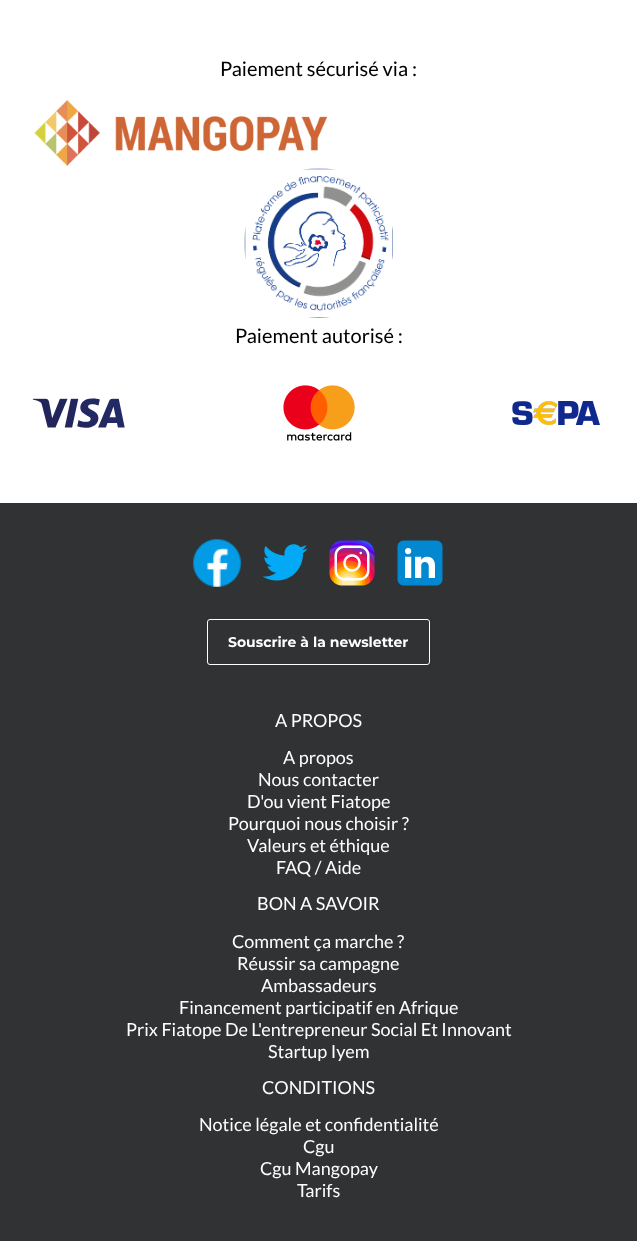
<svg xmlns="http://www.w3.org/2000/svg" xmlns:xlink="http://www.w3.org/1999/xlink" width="637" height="1241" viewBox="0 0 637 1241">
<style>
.cls-1{font:20px Lato;fill:#000000}
.cls-2{font:bold 14px Montserrat;fill:#ffffff}
.cls-3{font:18px Lato;fill:#ffffff}
</style>
<rect width="100%" height="100%" fill="#ffffff"/>
<image xlink:href="image0.png" x="34" y="100" width="293" height="66"/>
<image xlink:href="image1.png" x="244" y="168" width="150" height="150"/>
<image xlink:href="image2.png" x="32" y="398" width="93" height="30"/>
<image xlink:href="image3.png" x="283" y="385" width="72" height="56"/>
<image xlink:href="image4.png" x="512" y="401" width="88" height="24"/>
<rect fill="#303233" x="0" y="503" width="637" height="738"/>
<image xlink:href="image5.png" x="193" y="539" width="48" height="48"/>
<image xlink:href="image6.png" x="262" y="544" width="46" height="37"/>
<image xlink:href="image7.png" x="329" y="540" width="46" height="46"/>
<image xlink:href="image8.png" x="397" y="540" width="46" height="46"/>
<rect fill="none" stroke="#ffffff" x="207.5" y="619.5" width="222" height="45" rx="2.5"/>
<text class="cls-1" x="220" y="76">Paiement sécurisé via :</text>
<text class="cls-1" x="235" y="343">Paiement autorisé :</text>
<text class="cls-2" x="228" y="647">Souscrire à la newsletter</text>
<text class="cls-3" x="275" y="727">A PROPOS</text>
<text class="cls-3" x="283" y="764">A propos</text>
<text class="cls-3" x="258" y="786">Nous contacter</text>
<text class="cls-3" x="247" y="808">D'ou vient Fiatope</text>
<text class="cls-3" x="228" y="830">Pourquoi nous choisir ?</text>
<text class="cls-3" x="247" y="852">Valeurs et éthique</text>
<text class="cls-3" x="276" y="874">FAQ / Aide</text>
<text class="cls-3" x="257" y="910">BON A SAVOIR</text>
<text class="cls-3" x="232" y="948">Comment ça marche ?</text>
<text class="cls-3" x="237" y="970">Réussir sa campagne</text>
<text class="cls-3" x="261" y="992">Ambassadeurs</text>
<text class="cls-3" x="179" y="1014">Financement participatif en Afrique</text>
<text class="cls-3" x="126" y="1036">Prix Fiatope De L'entrepreneur Social Et Innovant</text>
<text class="cls-3" x="268" y="1058">Startup Iyem</text>
<text class="cls-3" x="262" y="1094">CONDITIONS</text>
<text class="cls-3" x="199" y="1131">Notice légale et confidentialité</text>
<text class="cls-3" x="303" y="1153">Cgu</text>
<text class="cls-3" x="260" y="1175">Cgu Mangopay</text>
<text class="cls-3" x="297" y="1197">Tarifs</text>
</svg>
